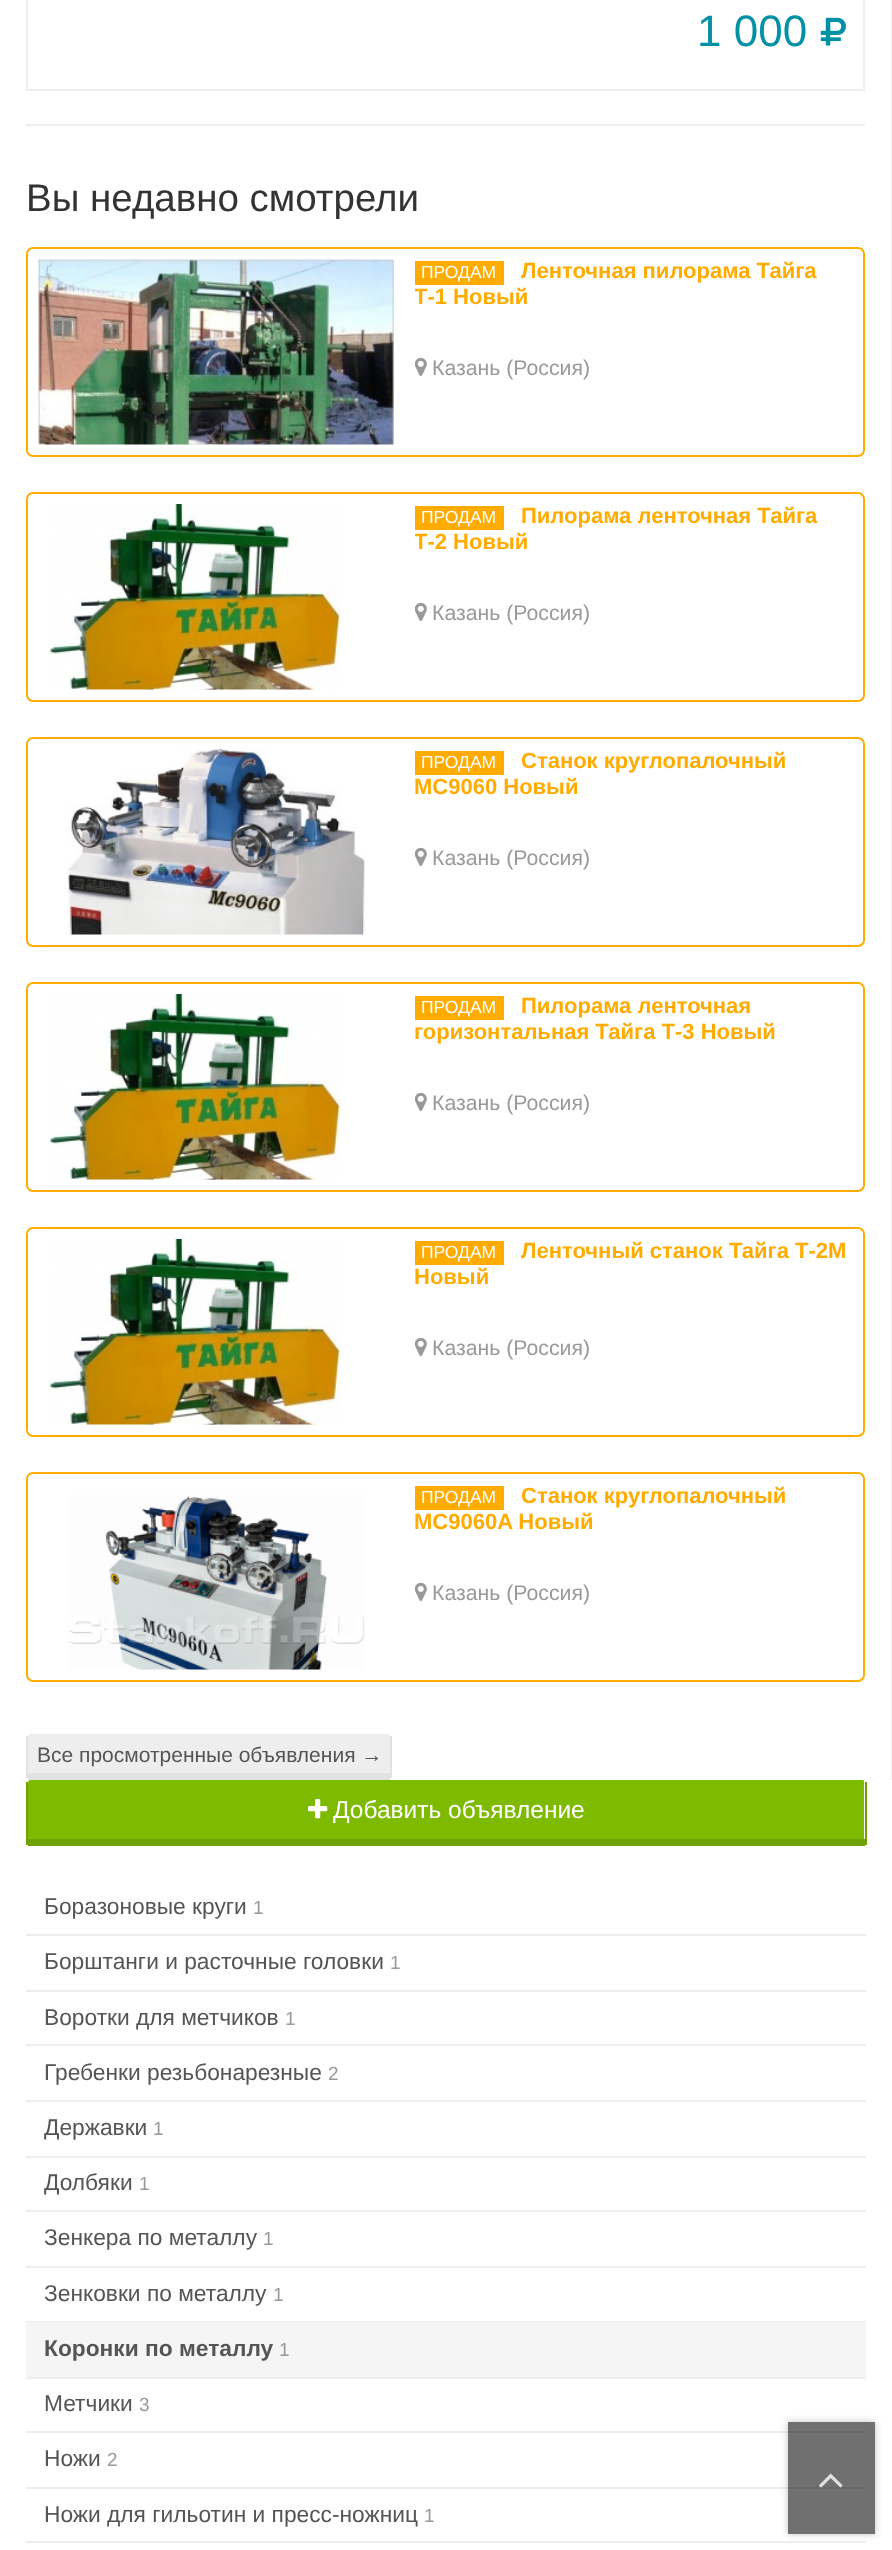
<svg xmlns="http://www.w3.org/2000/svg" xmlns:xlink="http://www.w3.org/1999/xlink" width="892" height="2550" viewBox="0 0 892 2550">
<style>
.cls-1{font:44px Liberation Sans;fill:#0191a5}
.cls-2{font:38.5px Liberation Sans;fill:#333333}
.cls-3{font:17.5px Liberation Sans;fill:#ffffff}
.cls-4{font:bold 22px Liberation Sans;fill:#ffab00}
.cls-5{font:21.25px Liberation Sans;fill:#999999}
.cls-6{font:21px Liberation Sans;fill:#555555}
.cls-7{font:24.5px Liberation Sans;fill:#ffffff}
.cls-8{font:22.75px Liberation Sans;fill:#555555}
.cls-9{font:19px Liberation Sans;fill:#999999}
.cls-10{font:bold 22.75px Liberation Sans;fill:#555555}
</style>
<defs>
<clipPath id="clip1"><path d="M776 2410H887V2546H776ZM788 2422H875V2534H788Z" clip-rule="evenodd"/></clipPath>
<clipPath id="clip2"><rect x="415" y="259" width="437" height="79"/></clipPath>
<clipPath id="clip3"><rect x="415" y="504" width="437" height="79"/></clipPath>
</defs>
<rect width="100%" height="100%" fill="#ffffff"/>
<rect fill="#707070" x="788" y="2422" width="87" height="112"/>
<rect fill="#eeeeee" x="891" y="0" width="1" height="1780"/>
<rect fill="none" stroke="#eeeeee" stroke-width="2" x="27" y="-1" width="837" height="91"/>
<image xlink:href="image0.png" x="820" y="17" width="26" height="29"/>
<rect fill="#eeeeee" x="26" y="124" width="839" height="2"/>
<rect fill="none" stroke="#ffab00" stroke-width="2" x="27" y="248" width="837" height="208" rx="6"/>
<image xlink:href="image1.png" x="38" y="259" width="356" height="186"/>
<rect fill="#ffab00" x="415" y="261" width="89" height="24"/>
<image xlink:href="image2.png" x="415" y="357" width="12" height="19"/>
<rect fill="none" stroke="#ffab00" stroke-width="2" x="27" y="493" width="837" height="208" rx="6"/>
<image xlink:href="image3.png" x="48" y="504" width="293" height="186"/>
<rect fill="#ffab00" x="415" y="506" width="89" height="24"/>
<image xlink:href="image2.png" x="415" y="602" width="12" height="19"/>
<rect fill="none" stroke="#ffab00" stroke-width="2" x="27" y="738" width="837" height="208" rx="6"/>
<image xlink:href="image4.png" x="63" y="749" width="302" height="186"/>
<rect fill="#ffab00" x="415" y="751" width="89" height="24"/>
<image xlink:href="image2.png" x="415" y="847" width="12" height="19"/>
<rect fill="none" stroke="#ffab00" stroke-width="2" x="27" y="983" width="837" height="208" rx="6"/>
<image xlink:href="image5.png" x="48" y="994" width="293" height="186"/>
<rect fill="#ffab00" x="415" y="996" width="89" height="24"/>
<image xlink:href="image2.png" x="415" y="1092" width="12" height="19"/>
<rect fill="none" stroke="#ffab00" stroke-width="2" x="27" y="1228" width="837" height="208" rx="6"/>
<image xlink:href="image6.png" x="48" y="1239" width="293" height="186"/>
<rect fill="#ffab00" x="415" y="1241" width="89" height="24"/>
<image xlink:href="image2.png" x="415" y="1337" width="12" height="19"/>
<rect fill="none" stroke="#ffab00" stroke-width="2" x="27" y="1473" width="837" height="208" rx="6"/>
<image xlink:href="image7.png" x="68" y="1495" width="297" height="175"/>
<rect fill="#ffab00" x="415" y="1486" width="89" height="24"/>
<image xlink:href="image2.png" x="415" y="1582" width="12" height="19"/>
<path fill="#eeeeee" d="M30 1734H388C389 1734 390 1736 390 1738V1773H28V1738C28 1736 29 1734 30 1734Z"/>
<rect fill="#e2e2e2" x="390" y="1736" width="2" height="42"/>
<rect fill="#e2e2e2" x="28" y="1773" width="362" height="7"/>
<rect fill="#e2e2e2" x="26" y="1736" width="2" height="42"/>
<path fill="#7ebb00" d="M30 1780H863C864 1780 864 1781 864 1783V1839H28V1783C28 1781 29 1780 30 1780Z"/>
<rect fill="#6da200" x="865" y="1782" width="2" height="63"/>
<rect fill="#6da200" x="28" y="1839" width="837" height="7"/>
<rect fill="#6da200" x="26" y="1782" width="2" height="63"/>
<image xlink:href="image8.png" x="308" y="1799" width="20" height="20"/>
<rect fill="#eeeeee" x="26" y="1934" width="840" height="2"/>
<rect fill="#eeeeee" x="26" y="1990" width="840" height="2"/>
<rect fill="#eeeeee" x="26" y="2044" width="840" height="2"/>
<rect fill="#eeeeee" x="26" y="2100" width="840" height="2"/>
<rect fill="#eeeeee" x="26" y="2156" width="840" height="2"/>
<rect fill="#eeeeee" x="26" y="2210" width="840" height="2"/>
<rect fill="#eeeeee" x="26" y="2266" width="840" height="2"/>
<rect fill="#eeeeee" x="26" y="2321" width="840" height="1"/>
<rect fill="#f5f5f5" x="26" y="2322" width="840" height="55"/>
<rect fill="#eeeeee" x="26" y="2377" width="840" height="2"/>
<rect fill="#eeeeee" x="26" y="2431" width="762" height="2"/>
<rect fill="#696969" x="788" y="2431" width="78" height="2"/>
<rect fill="#eeeeee" x="26" y="2487" width="762" height="2"/>
<rect fill="#696969" x="788" y="2487" width="78" height="2"/>
<rect fill="#eeeeee" x="26" y="2541" width="840" height="2"/>
<g clip-path="url(#clip1)">
<rect fill="#000000" fill-opacity="0.24" filter="blur(3.5px)" x="788" y="2422" width="87" height="112"/>
</g>
<image xlink:href="image9.png" x="819" y="2473" width="24" height="15"/>
<text class="cls-1" x="697" y="46">1 000</text>
<text class="cls-2" x="26" y="211">Вы недавно смотрели</text>
<text class="cls-3" x="421" y="278">ПРОДАМ</text>
<text class="cls-4" x="521" y="278">Ленточная пилорама Тайга</text>
<g clip-path="url(#clip2)">
<text class="cls-4" x="414" y="304">Т-1 Новый</text>
</g>
<text class="cls-5" x="432" y="375">Казань (Россия)</text>
<text class="cls-3" x="421" y="523">ПРОДАМ</text>
<text class="cls-4" x="521" y="523">Пилорама ленточная Тайга</text>
<g clip-path="url(#clip3)">
<text class="cls-4" x="414" y="549">Т-2 Новый</text>
</g>
<text class="cls-5" x="432" y="620">Казань (Россия)</text>
<text class="cls-3" x="421" y="768">ПРОДАМ</text>
<text class="cls-4" x="521" y="768">Станок круглопалочный</text>
<text class="cls-4" x="414" y="794">MC9060 Новый</text>
<text class="cls-5" x="432" y="865">Казань (Россия)</text>
<text class="cls-3" x="421" y="1013">ПРОДАМ</text>
<text class="cls-4" x="521" y="1013">Пилорама ленточная</text>
<text class="cls-4" x="414" y="1039">горизонтальная Тайга Т-3 Новый</text>
<text class="cls-5" x="432" y="1110">Казань (Россия)</text>
<text class="cls-3" x="421" y="1258">ПРОДАМ</text>
<text class="cls-4" x="521" y="1258">Ленточный станок Тайга Т-2М</text>
<text class="cls-4" x="414" y="1284">Новый</text>
<text class="cls-5" x="432" y="1355">Казань (Россия)</text>
<text class="cls-3" x="421" y="1503">ПРОДАМ</text>
<text class="cls-4" x="521" y="1503">Станок круглопалочный</text>
<text class="cls-4" x="414" y="1529">MC9060A Новый</text>
<text class="cls-5" x="432" y="1600">Казань (Россия)</text>
<text class="cls-6" x="37" y="1762">Все просмотренные объявления →</text>
<text class="cls-7" x="333" y="1818">Добавить объявление</text>
<text class="cls-8" x="44" y="1914">Боразоновые круги</text>
<text class="cls-9" x="253" y="1914">1</text>
<text class="cls-8" x="44" y="1969">Борштанги и расточные головки</text>
<text class="cls-9" x="390" y="1969">1</text>
<text class="cls-8" x="44" y="2025">Воротки для метчиков</text>
<text class="cls-9" x="285" y="2025">1</text>
<text class="cls-8" x="44" y="2080">Гребенки резьбонарезные</text>
<text class="cls-9" x="328" y="2080">2</text>
<text class="cls-8" x="44" y="2135">Державки</text>
<text class="cls-9" x="153" y="2135">1</text>
<text class="cls-8" x="44" y="2190">Долбяки</text>
<text class="cls-9" x="139" y="2190">1</text>
<text class="cls-8" x="44" y="2245">Зенкера по металлу</text>
<text class="cls-9" x="263" y="2245">1</text>
<text class="cls-8" x="44" y="2301">Зенковки по металлу</text>
<text class="cls-9" x="273" y="2301">1</text>
<text class="cls-10" x="44" y="2356">Коронки по металлу</text>
<text class="cls-9" x="279" y="2356">1</text>
<text class="cls-8" x="44" y="2411">Метчики</text>
<text class="cls-9" x="139" y="2411">3</text>
<text class="cls-8" x="44" y="2466">Ножи</text>
<text class="cls-9" x="107" y="2466">2</text>
<text class="cls-8" x="44" y="2522">Ножи для гильотин и пресс-ножниц</text>
<text class="cls-9" x="424" y="2522">1</text>
</svg>
